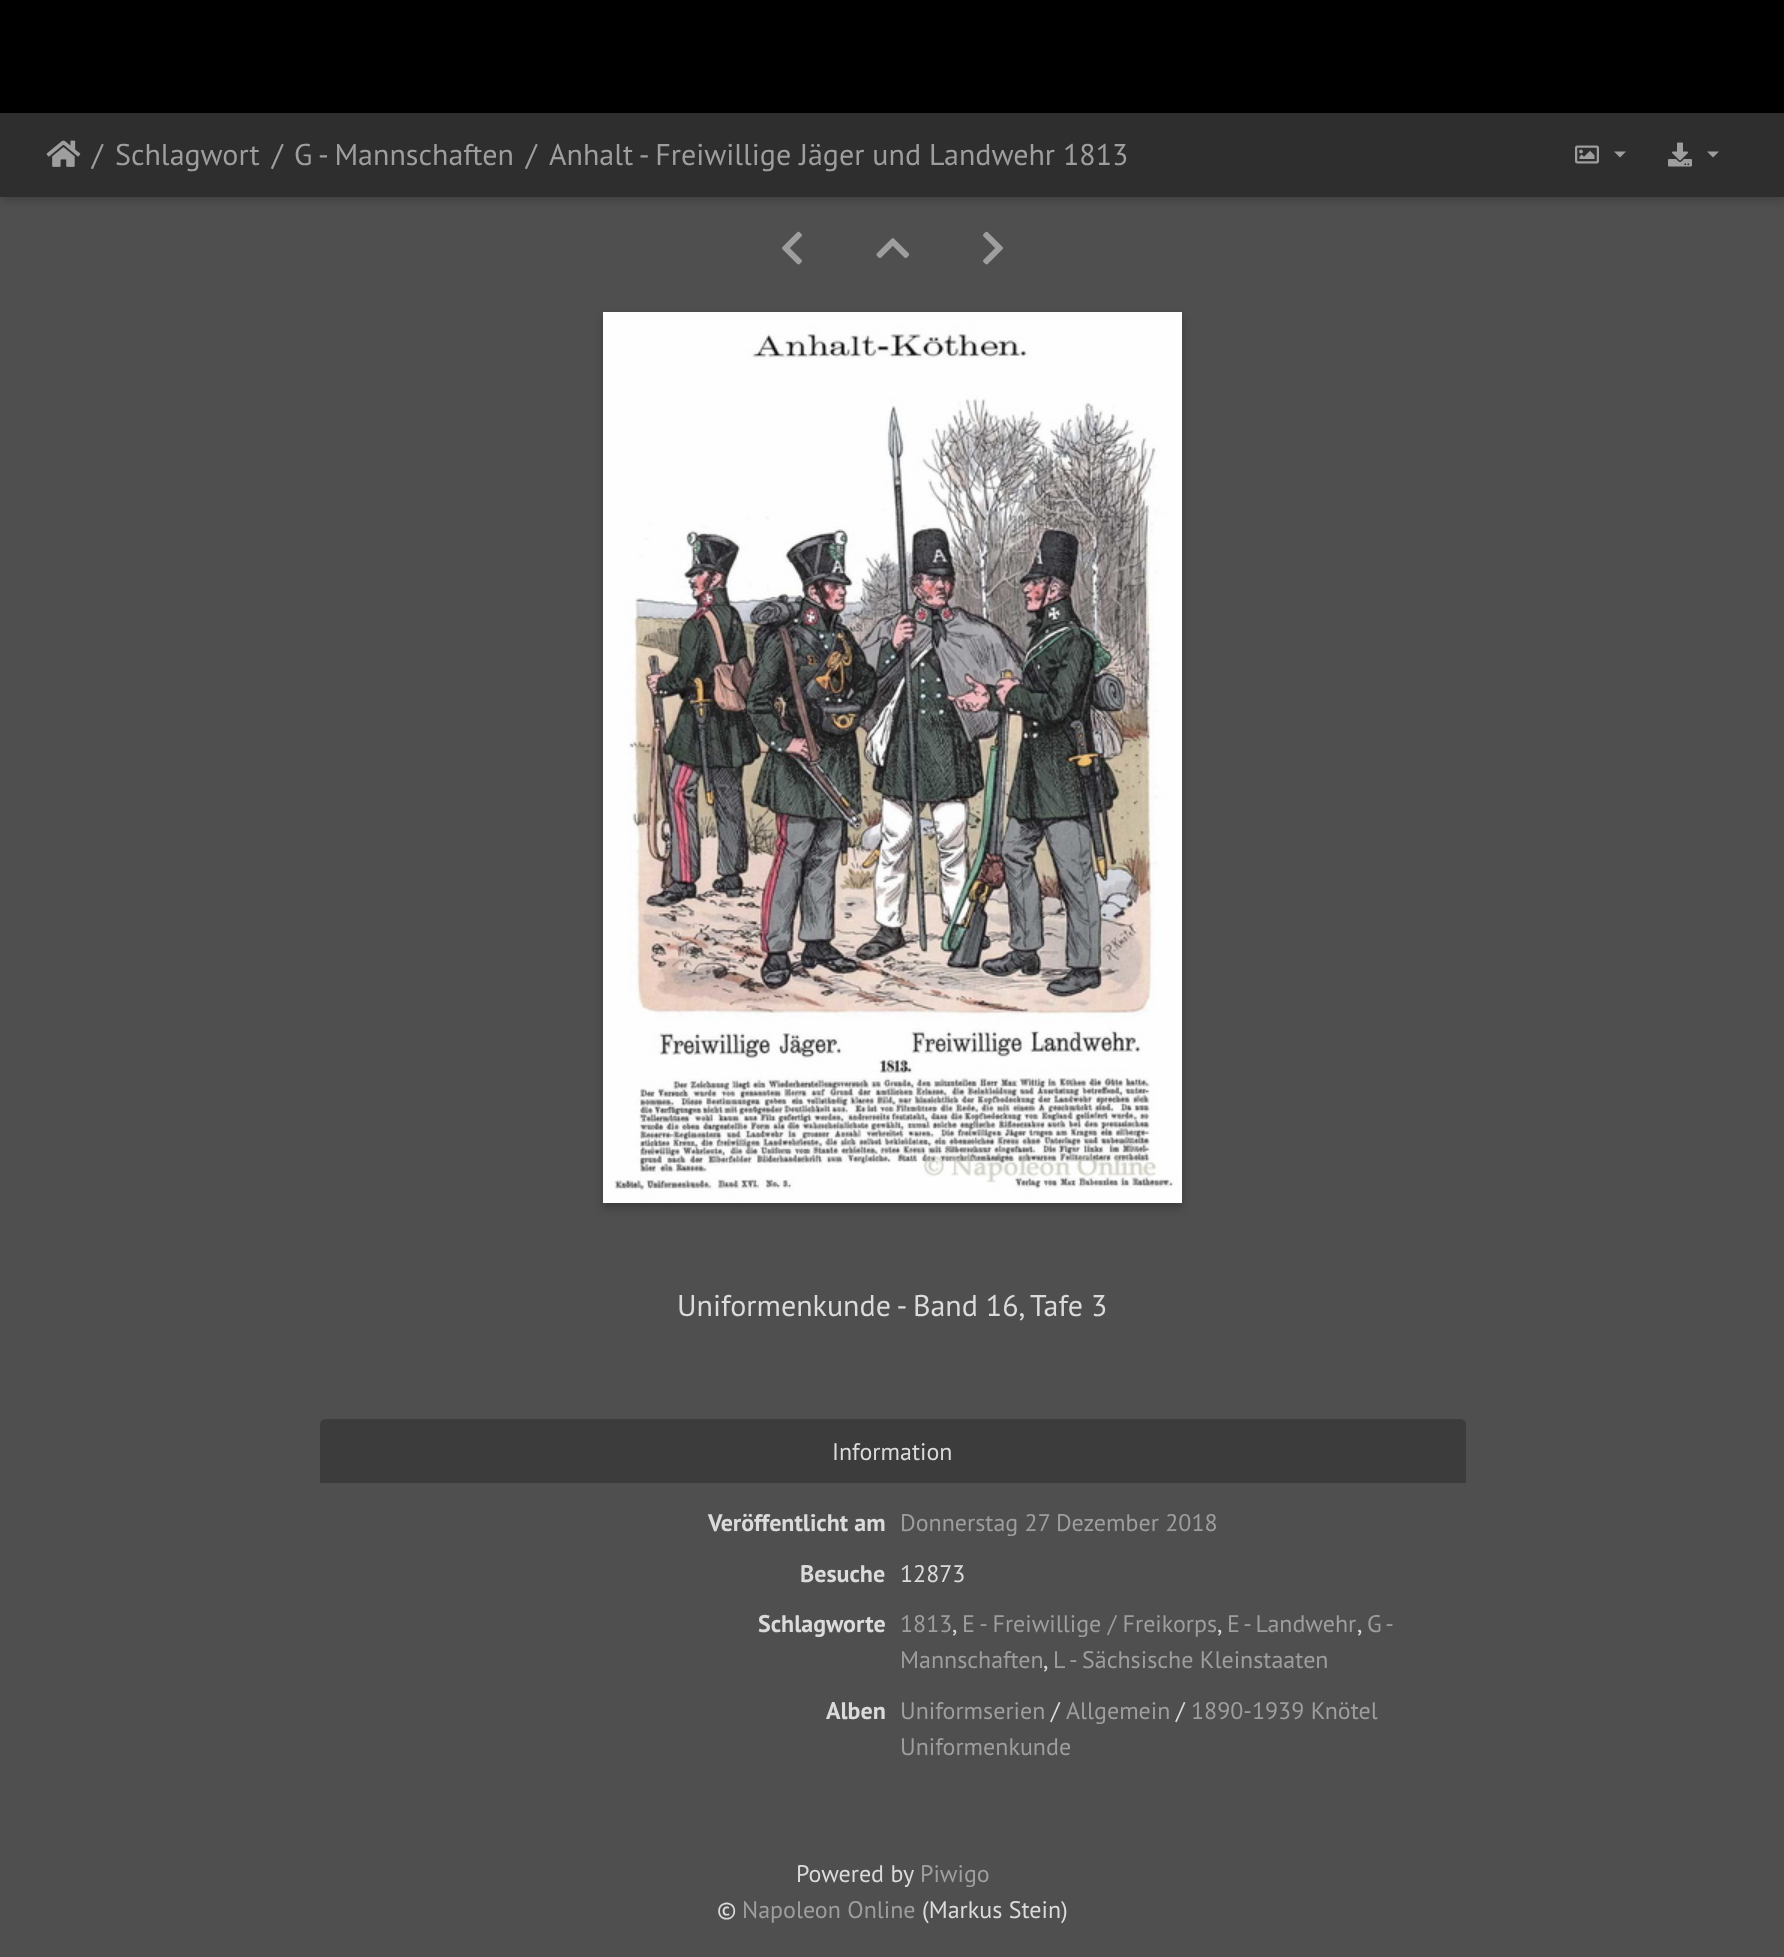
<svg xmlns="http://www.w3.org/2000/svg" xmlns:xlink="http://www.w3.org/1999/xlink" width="1784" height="1957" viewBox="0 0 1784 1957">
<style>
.cls-1{font:30px PT Sans;fill:#9e9e9e}
.cls-2{font:30px PT Sans;fill:#dbdbdb}
.cls-3{font:24px PT Sans;fill:#dbdbdb}
.cls-4{font:bold 24px PT Sans;fill:#dbdbdb}
.cls-5{font:24px PT Sans;fill:#9e9e9e}
</style>
<rect width="100%" height="100%" fill="#4f4f4f"/>
<rect fill="#000000" x="0" y="0" width="1784" height="113"/>
<rect fill="#000000" fill-opacity="0.2" filter="blur(4px)" x="2" y="119" width="1782" height="81"/>
<rect fill="#2e2e2e" x="0" y="113" width="1784" height="84"/>
<image xlink:href="image0.png" x="46" y="140" width="35" height="27"/>
<image xlink:href="image1.png" x="1575" y="145" width="24" height="19"/>
<path fill="#9e9e9e" d="M1614 151.5H1626L1620 157.5Z"/>
<image xlink:href="image2.png" x="1668" y="142" width="24" height="25"/>
<path fill="#9e9e9e" d="M1707 151.5H1719L1713 157.5Z"/>
<image xlink:href="image3.png" x="782" y="231" width="20" height="34"/>
<image xlink:href="image4.png" x="876" y="238" width="34" height="20"/>
<image xlink:href="image5.png" x="983" y="231" width="20" height="34"/>
<rect fill="#000000" fill-opacity="0.23" filter="blur(4.5px)" x="603" y="317" width="579" height="891"/>
<image xlink:href="image6.png" x="603" y="312" width="579" height="891"/>
<rect fill="#3c3c3c" x="320" y="1482" width="1146" height="1"/>
<path fill="#3c3c3c" stroke="#3c3c3c" stroke-width="2" d="M326 1420H1460C1463 1420 1465 1422 1465 1425V1481H321V1425C321 1422 323 1420 326 1420Z"/>
<text class="cls-1" x="92" y="165">/</text>
<text class="cls-1" x="115" y="165">Schlagwort</text>
<text class="cls-1" x="272" y="165">/</text>
<text class="cls-1" x="294" y="165">G - Mannschaften</text>
<text class="cls-1" x="526" y="165">/</text>
<text class="cls-1" x="549" y="165">Anhalt - Freiwillige Jäger und Landwehr 1813</text>
<text class="cls-2" x="677" y="1316">Uniformenkunde - Band 16, Tafe 3</text>
<text class="cls-3" x="832" y="1460">Information</text>
<text class="cls-4" x="708" y="1531">Veröffentlicht am</text>
<text class="cls-5" x="900" y="1531">Donnerstag 27 Dezember 2018</text>
<text class="cls-4" x="800" y="1582">Besuche</text>
<text class="cls-3" x="900" y="1582">12873</text>
<text class="cls-4" x="758" y="1632">Schlagworte</text>
<text class="cls-5" x="900" y="1632">1813</text>
<text class="cls-3" x="952" y="1632">,</text>
<text class="cls-5" x="962" y="1632">E - Freiwillige / Freikorps</text>
<text class="cls-3" x="1217" y="1632">,</text>
<text class="cls-5" x="1227" y="1632" word-spacing="-1">E - Landwehr</text>
<text class="cls-3" x="1357" y="1632">,</text>
<text class="cls-5" x="1367" y="1632" word-spacing="-1">G -</text>
<text class="cls-5" x="900" y="1668">Mannschaften</text>
<text class="cls-3" x="1043" y="1668">,</text>
<text class="cls-5" x="1053" y="1668">L - Sächsische Kleinstaaten</text>
<text class="cls-4" x="826" y="1719">Alben</text>
<text class="cls-5" x="900" y="1719">Uniformserien</text>
<text class="cls-3" x="1051" y="1719">/</text>
<text class="cls-5" x="1066" y="1719">Allgemein</text>
<text class="cls-3" x="1176" y="1719">/</text>
<text class="cls-5" x="1191" y="1719">1890-1939 Knötel</text>
<text class="cls-5" x="900" y="1755">Uniformenkunde</text>
<text class="cls-3" x="796" y="1882">Powered by</text>
<text class="cls-5" x="920" y="1882">Piwigo</text>
<text class="cls-3" x="717" y="1918">©</text>
<text class="cls-5" x="742" y="1918">Napoleon Online</text>
<text class="cls-3" x="922" y="1918">(Markus Stein)</text>
</svg>
